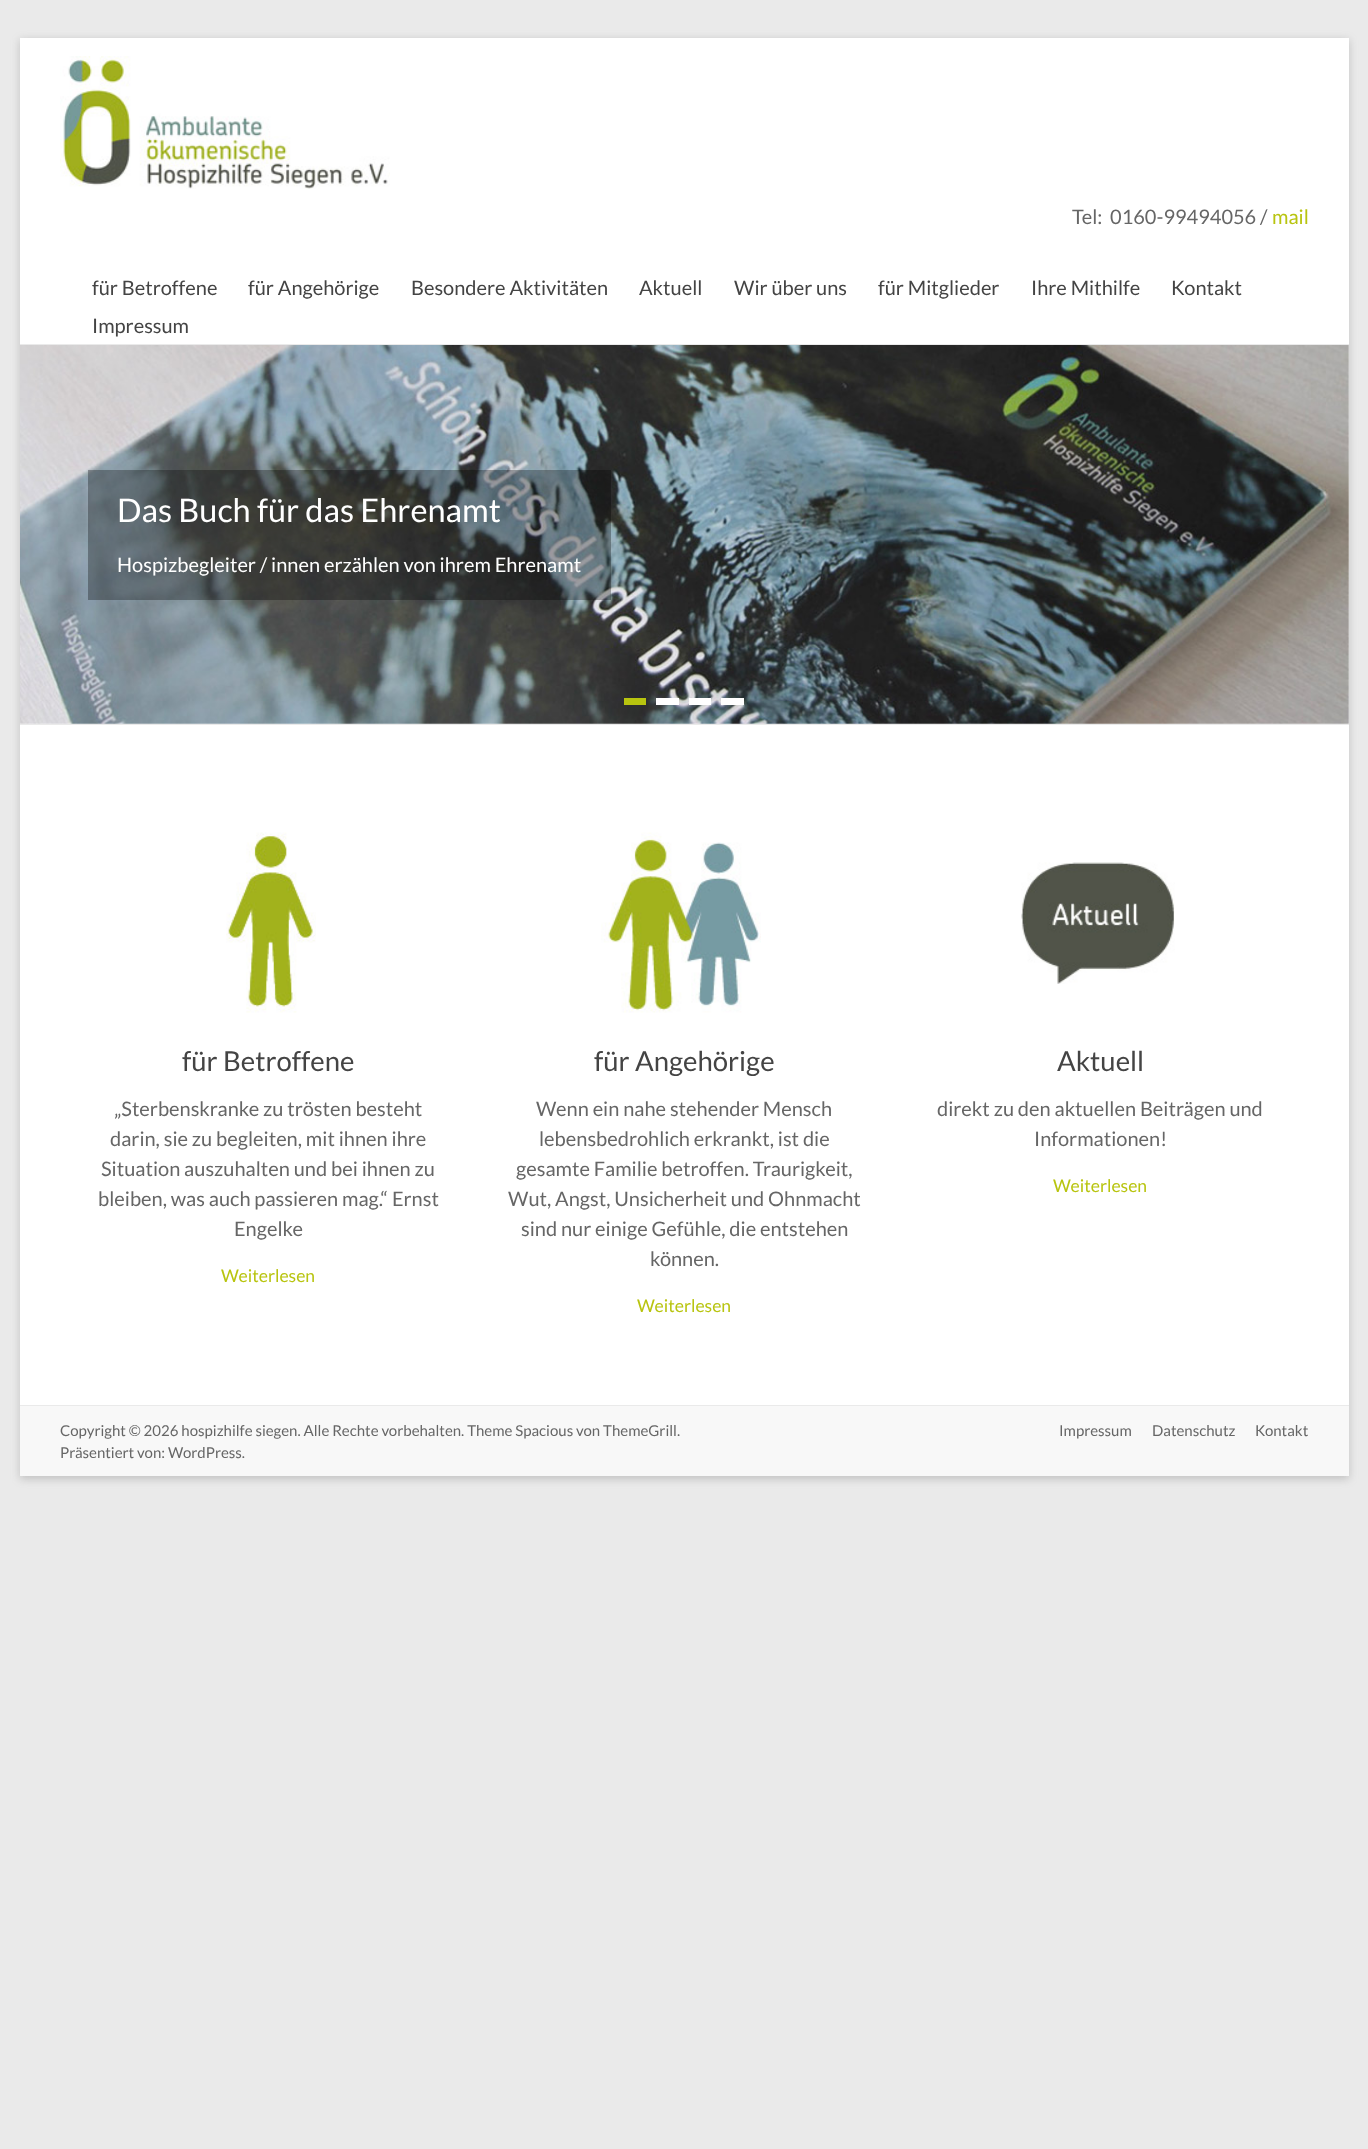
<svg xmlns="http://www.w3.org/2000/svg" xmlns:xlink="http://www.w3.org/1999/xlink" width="1368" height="2149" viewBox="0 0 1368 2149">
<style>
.cls-1{font:20px Lato;fill:#666666}
.cls-2{font:20px Lato;fill:#b8c40f}
.cls-3{font:20px Lato;fill:#444444}
.cls-4{font:32.5px Lato;fill:#ffffff}
.cls-5{font:20px Lato;fill:#ffffff}
.cls-6{font:27.5px Lato;fill:#444444}
.cls-7{font:17.5px Lato;fill:#b8c40f}
.cls-8{font:15px Lato;fill:#666666}
</style>
<rect width="100%" height="100%" fill="#eaeaea"/>
<rect fill="#646464" fill-opacity="0.3" filter="blur(4px)" x="20" y="40" width="1329" height="1439"/>
<rect fill="#ffffff" x="20" y="38" width="1329" height="1367"/>
<rect fill="#eaeaea" x="20" y="344" width="1329" height="1"/>
<image xlink:href="image0.png" x="60" y="56" width="330" height="133"/>
<rect fill="#eaeaea" x="20" y="724" width="1329" height="1"/>
<image xlink:href="image1.png" x="20" y="345" width="1329" height="379"/>
<rect fill="#000000" fill-opacity="0.3" x="88" y="470" width="523" height="130"/>
<rect fill="#b8c40f" x="624" y="698" width="22" height="7"/>
<rect fill="#ffffff" x="656" y="698" width="23" height="7"/>
<rect fill="#ffffff" x="689" y="698" width="22" height="7"/>
<rect fill="#ffffff" x="721" y="698" width="23" height="7"/>
<image xlink:href="image2.png" x="226" y="832" width="90" height="181"/>
<image xlink:href="image3.png" x="601" y="832" width="160" height="181"/>
<image xlink:href="image4.png" x="1021" y="862" width="154" height="122"/>
<rect fill="#f8f8f8" x="20" y="1406" width="1329" height="70"/>
<rect fill="#eaeaea" x="20" y="1405" width="1329" height="1"/>
<text class="cls-1" xml:space="preserve" x="1072" y="224">Tel:  0160-99494056 /</text>
<text class="cls-2" x="1272" y="224">mail</text>
<text class="cls-3" x="92" y="295">für Betroffene</text>
<text class="cls-3" x="248" y="295">für Angehörige</text>
<text class="cls-3" x="411" y="295">Besondere Aktivitäten</text>
<text class="cls-3" x="639" y="295">Aktuell</text>
<text class="cls-3" x="734" y="295">Wir über uns</text>
<text class="cls-3" x="878" y="295">für Mitglieder</text>
<text class="cls-3" x="1031" y="295">Ihre Mithilfe</text>
<text class="cls-3" x="1171" y="295">Kontakt</text>
<text class="cls-3" x="92" y="333">Impressum</text>
<text class="cls-4" x="117" y="522">Das Buch für das Ehrenamt</text>
<text class="cls-5" x="117" y="572">Hospizbegleiter / innen erzählen von ihrem Ehrenamt</text>
<text class="cls-6" x="182" y="1071">für Betroffene</text>
<text class="cls-1" x="114" y="1116">„Sterbenskranke zu trösten besteht</text>
<text class="cls-1" x="110" y="1146">darin, sie zu begleiten, mit ihnen ihre</text>
<text class="cls-1" x="101" y="1176">Situation auszuhalten und bei ihnen zu</text>
<text class="cls-1" x="98" y="1206">bleiben, was auch passieren mag.“ Ernst</text>
<text class="cls-1" x="234" y="1236">Engelke</text>
<text class="cls-7" x="221" y="1282">Weiterlesen</text>
<text class="cls-6" x="594" y="1071">für Angehörige</text>
<text class="cls-1" x="536" y="1116">Wenn ein nahe stehender Mensch</text>
<text class="cls-1" x="539" y="1146">lebensbedrohlich erkrankt, ist die</text>
<text class="cls-1" x="516" y="1176">gesamte Familie betroffen. Traurigkeit,</text>
<text class="cls-1" x="508" y="1206">Wut, Angst, Unsicherheit und Ohnmacht</text>
<text class="cls-1" x="521" y="1236">sind nur einige Gefühle, die entstehen</text>
<text class="cls-1" x="650" y="1266">können.</text>
<text class="cls-7" x="637" y="1312">Weiterlesen</text>
<text class="cls-6" x="1057" y="1071">Aktuell</text>
<text class="cls-1" x="937" y="1116">direkt zu den aktuellen Beiträgen und</text>
<text class="cls-1" x="1034" y="1146">Informationen!</text>
<text class="cls-7" x="1053" y="1192">Weiterlesen</text>
<text class="cls-8"><tspan x="60" y="1436">Copyright © 2026 hospizhilfe siegen. Alle Rechte vorbehalten. Theme Spacious von ThemeGrill.</tspan><tspan x="60" y="1458">Präsentiert von: WordPress.</tspan></text>
<text class="cls-8" x="1059" y="1436">Impressum</text>
<text class="cls-8" x="1152" y="1436">Datenschutz</text>
<text class="cls-8" x="1255" y="1436">Kontakt</text>
</svg>
